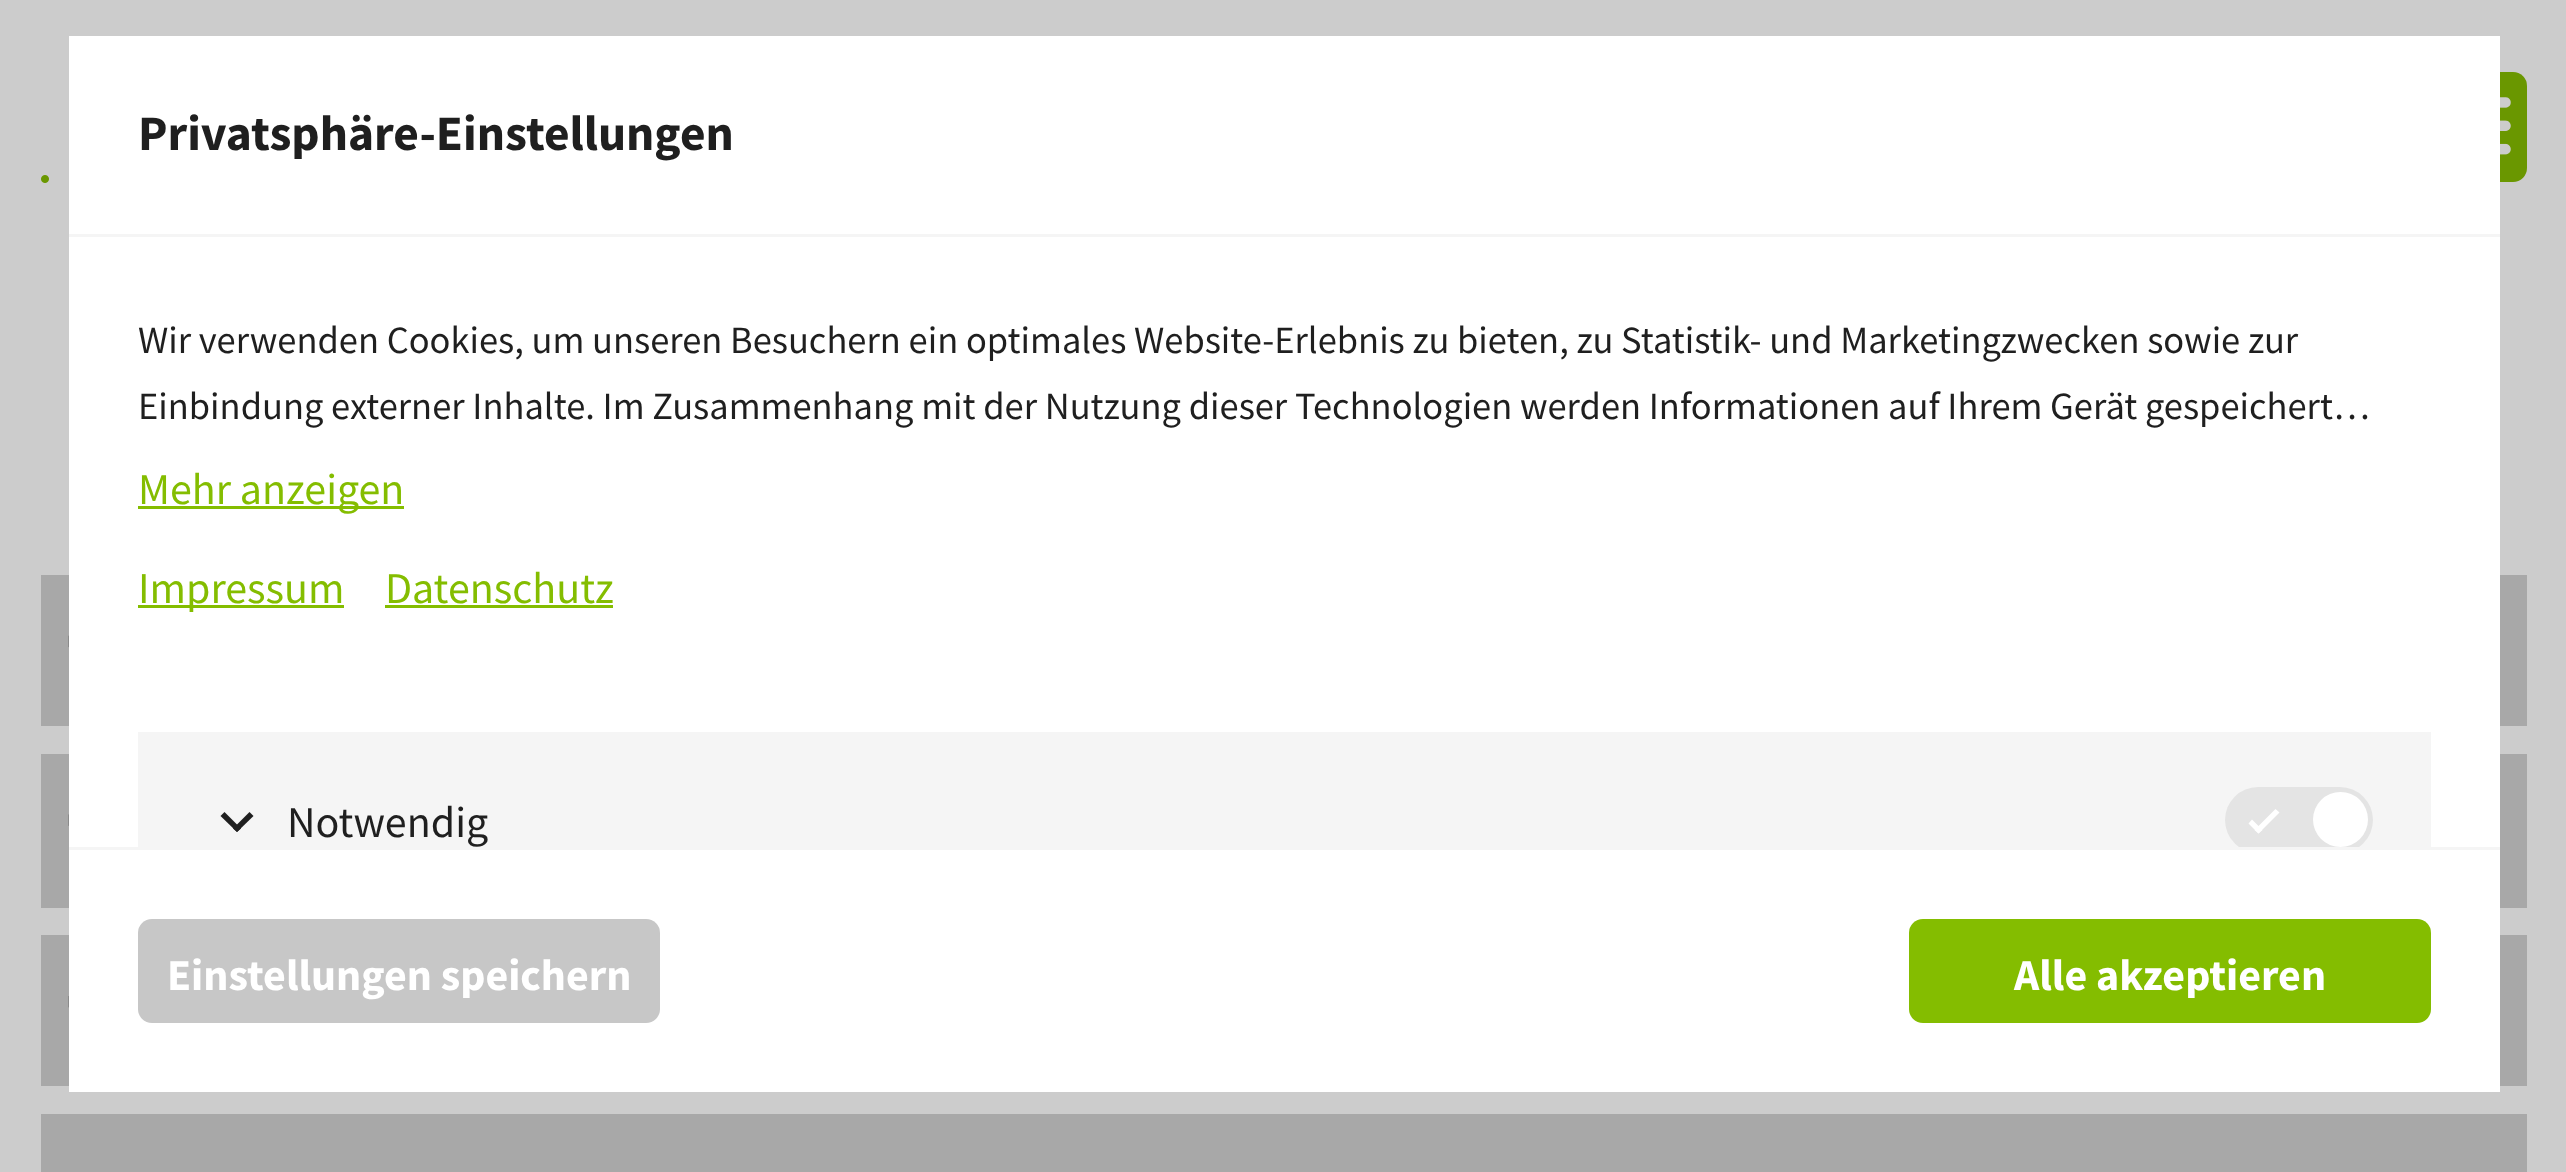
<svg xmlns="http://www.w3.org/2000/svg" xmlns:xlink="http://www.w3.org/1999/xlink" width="2566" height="1172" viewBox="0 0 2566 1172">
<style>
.cls-1{font:bold 49.5px Source Sans Pro;fill:#1f1f1f}
.cls-2{font:38.5px Source Sans Pro;fill:#1f1f1f}
.cls-3{font:44px Source Sans Pro;fill:#84bd00}
.cls-4{font:44px Source Sans Pro;fill:#1f1f1f}
.cls-5{font:bold 44px Source Sans Pro;fill:#ffffff}
</style>
<defs>
<clipPath id="clip1"><rect x="69" y="237" width="2431" height="610"/></clipPath>
</defs>
<rect width="100%" height="100%" fill="#cccccc"/>
<image xlink:href="image0.png" x="41" y="175" width="8" height="8"/>
<rect fill="#6a9700" x="2417" y="72" width="110" height="110" rx="14"/>
<image xlink:href="image1.png" x="2500" y="97" width="11" height="58"/>
<rect fill="#a8a8a8" x="41" y="575" width="2486" height="151"/>
<image xlink:href="image2.png" x="68" y="635" width="1" height="13"/>
<rect fill="#a8a8a8" x="41" y="754" width="2486" height="154"/>
<image xlink:href="image3.png" x="68" y="814" width="1" height="12"/>
<rect fill="#a8a8a8" x="41" y="935" width="2486" height="151"/>
<image xlink:href="image4.png" x="68" y="996" width="1" height="12"/>
<rect fill="#a8a8a8" x="41" y="1114" width="2486" height="58"/>
<rect fill="#ffffff" x="69" y="36" width="2431" height="198"/>
<rect fill="#f5f5f5" x="69" y="234" width="2431" height="3"/>
<rect fill="#ffffff" x="69" y="237" width="2431" height="610"/>
<rect fill="#84bd00" x="138" y="506" width="266" height="3"/>
<rect fill="#84bd00" x="138" y="605" width="206" height="3"/>
<rect fill="#84bd00" x="385" y="605" width="228" height="3"/>
<rect fill="#f5f5f5" x="138" y="732" width="2293" height="115"/>
<path fill="#1f1f1f" d="M249.5 812L253.5 816L237 832L233 828.5Z"/>
<path fill="#1f1f1f" d="M224.5 812L241 828.5L237 832L220.5 816Z"/>
<rect fill="#ffffff" x="69" y="850" width="2431" height="242"/>
<rect fill="#f5f5f5" x="69" y="847" width="2431" height="3"/>
<g clip-path="url(#clip1)">
<rect fill="#e4e4e4" x="2225" y="787" width="148" height="66" rx="33"/>
</g>
<path fill="#ffffff" d="M2275.5 809L2279.5 812.5L2258.5 833.5L2254.5 830Z"/>
<path fill="#ffffff" d="M2252 819.5L2262.5 830L2258.5 833.5L2248.5 823.5Z"/>
<circle fill="#ffffff" cx="2340.5" cy="819.5" r="27.5"/>
<rect fill="#c7c7c7" x="138" y="919" width="522" height="104" rx="14"/>
<rect fill="#84bd00" x="1909" y="919" width="522" height="104" rx="14"/>
<text class="cls-1" x="138" y="150">Privatsphäre-Einstellungen</text>
<text class="cls-2"><tspan x="138" y="353">Wir verwenden Cookies, um unseren Besuchern ein optimales Website-Erlebnis zu bieten, zu Statistik- und Marketingzwecken sowie zur</tspan><tspan x="138" y="419">Einbindung externer Inhalte. Im Zusammenhang mit der Nutzung dieser Technologien werden Informationen auf Ihrem Gerät gespeichert…</tspan></text>
<text class="cls-3" x="138" y="504">Mehr anzeigen</text>
<text class="cls-3" x="138" y="603">Impressum</text>
<text class="cls-3" x="385" y="603">Datenschutz</text>
<text class="cls-4" x="287" y="837">Notwendig</text>
<text class="cls-5" x="167" y="990">Einstellungen speichern</text>
<text class="cls-5" x="2014" y="990">Alle akzeptieren</text>
</svg>
